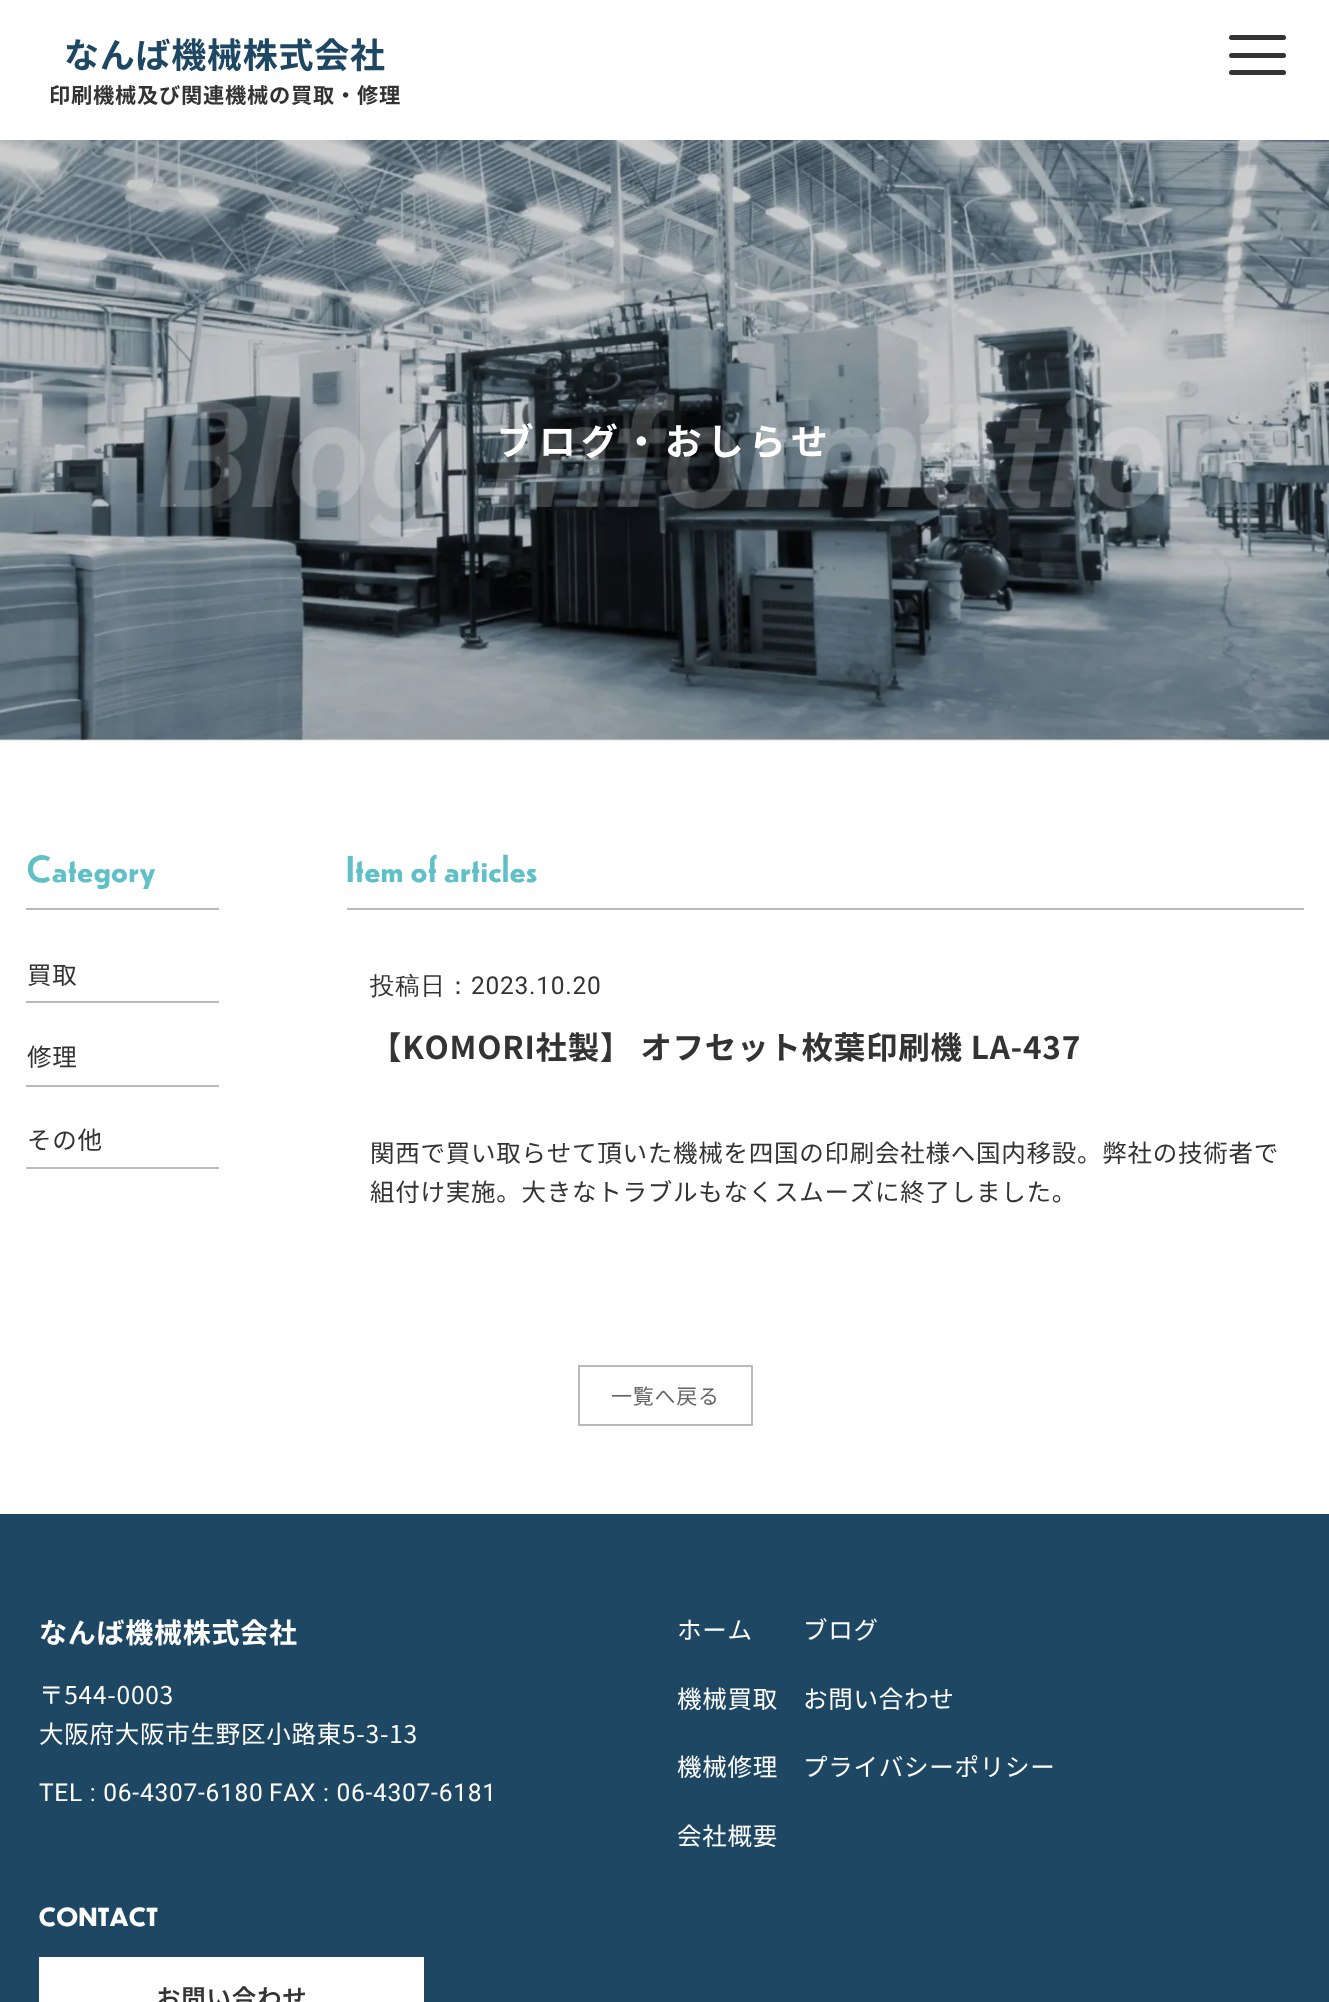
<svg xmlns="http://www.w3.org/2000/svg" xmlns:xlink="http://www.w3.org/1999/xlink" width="1329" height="2002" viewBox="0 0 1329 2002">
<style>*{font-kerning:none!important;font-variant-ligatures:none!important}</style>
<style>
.cls-1{font:bold 35px Noto Sans JP;letter-spacing:0.75px;fill:#1d4763}
.cls-2{font:bold 21.25px Noto Sans JP;letter-spacing:0.75px;fill:#333333}
.cls-3{font:bold 36.75px Noto Sans JP;letter-spacing:5.25px;fill:#ffffff}
.cls-4{font:500 35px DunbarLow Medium;letter-spacing:0.75px;fill:#5fc1c7}
.cls-5{font:24.5px Noto Sans JP;letter-spacing:0.75px;fill:#333333}
.cls-6{font:500 24.5px WenQuanYi Zen Hei;letter-spacing:0.75px;fill:#333333}
.cls-7{font:24.5px Roboto;letter-spacing:0.75px;fill:#333333}
.cls-8{font:bold 31.5px Noto Sans JP;letter-spacing:0.75px;fill:#333333}
.cls-9{font:21px Noto Sans JP;letter-spacing:0.75px;fill:#666666}
.cls-10{font:bold 28px Noto Sans JP;letter-spacing:0.75px;fill:#ffffff}
.cls-11{font:24.5px Noto Sans JP;letter-spacing:0.75px;fill:#ffffff}
.cls-12{font:24.5px Roboto;letter-spacing:0.75px;fill:#ffffff}
.cls-13{font:bold 24.5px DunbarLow;letter-spacing:0.75px;fill:#ffffff}
.cls-14{font:600 24.5px Noto Sans JP;letter-spacing:0.75px;fill:#333333}
</style>
<rect width="100%" height="100%" fill="#ffffff"/>
<rect fill="#333333" x="1229" y="53" width="57" height="5" rx="2.5"/>
<rect fill="#333333" x="1229" y="35" width="57" height="5" rx="2.5"/>
<rect fill="#333333" x="1229" y="70" width="57" height="5" rx="2.5"/>
<image xlink:href="image0.png" x="0" y="140" width="1329" height="601"/>
<rect fill="#bababa" x="26" y="908" width="193" height="2"/>
<rect fill="#bababa" x="26" y="1001" width="193" height="2"/>
<rect fill="#bababa" x="26" y="1085" width="193" height="2"/>
<rect fill="#bababa" x="26" y="1167" width="193" height="2"/>
<rect fill="#bababa" x="347" y="908" width="957" height="2"/>
<rect fill="none" stroke="#bababa" stroke-width="2" x="579" y="1366" width="173" height="59"/>
<rect fill="#1d4763" x="0" y="1514" width="1329" height="488"/>
<rect fill="#ffffff" x="39" y="1957" width="385" height="45"/>
<text class="cls-1" x="64" y="68">なんば機械株式会社</text>
<text class="cls-2" x="49" y="103">印刷機械及び関連機械の買取・修理</text>
<text class="cls-3" x="497" y="455">ブログ・おしらせ</text>
<text class="cls-4" x="27" y="882">Category</text>
<text class="cls-5" x="27" y="984">買取</text>
<text class="cls-5" x="27" y="1066">修理</text>
<text class="cls-5" x="27" y="1149">その他</text>
<text class="cls-4" x="346" y="882">Item of articles</text>
<text class="cls-6" x="370" y="994">投稿日：</text>
<text class="cls-7" x="471" y="994">2023.10.20</text>
<text class="cls-8" x="370" y="1059">【KOMORI社製】 オフセット枚葉印刷機 LA-437</text>
<text class="cls-5"><tspan x="370" y="1162">関西で買い取らせて頂いた機械を四国の印刷会社様へ国内移設。弊社の技術者で</tspan><tspan x="370" y="1201">組付け実施。大きなトラブルもなくスムーズに終了しました。</tspan></text>
<text class="cls-9" x="611" y="1404">一覧へ戻る</text>
<text class="cls-10" x="39" y="1643">なんば機械株式会社</text>
<text class="cls-11"><tspan x="39" y="1704">〒544-0003</tspan><tspan x="39" y="1743">大阪府大阪市生野区小路東5-3-13</tspan></text>
<text class="cls-12" x="39" y="1801">TEL : 06-4307-6180</text>
<text class="cls-12" x="269" y="1801">FAX : 06-4307-6181</text>
<text class="cls-11" x="677" y="1639">ホーム</text>
<text class="cls-11" x="677" y="1708">機械買取</text>
<text class="cls-11" x="677" y="1776">機械修理</text>
<text class="cls-11" x="677" y="1845">会社概要</text>
<text class="cls-11" x="803" y="1639">ブログ</text>
<text class="cls-11" x="803" y="1708">お問い合わせ</text>
<text class="cls-11" x="803" y="1776">プライバシーポリシー</text>
<text class="cls-13" x="39" y="1926">CONTACT</text>
<text class="cls-14" x="156" y="2007">お問い合わせ</text>
</svg>
